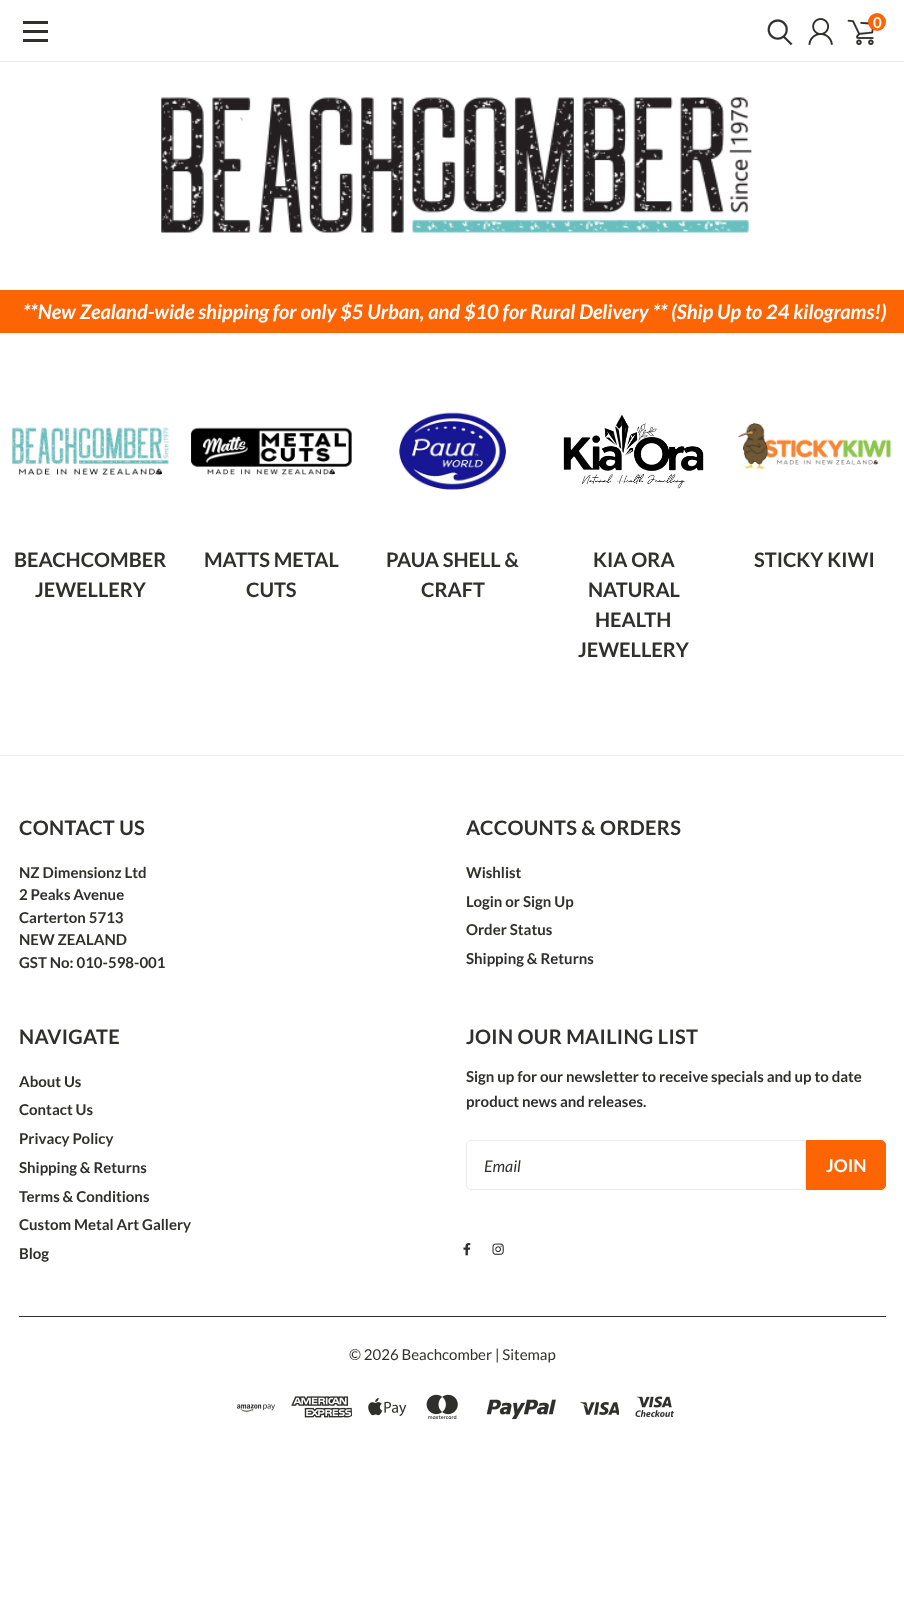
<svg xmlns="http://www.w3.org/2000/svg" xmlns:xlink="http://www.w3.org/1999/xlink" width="904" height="1604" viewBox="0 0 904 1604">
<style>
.cls-1{font:bold 15px Lato;fill:#ffffff}
.cls-2{font:italic bold 20px Lato;fill:#ffffff}
.cls-3{font:bold 20px Lato;fill:#2f2f2b}
.cls-4{font:bold 20px Lato;letter-spacing:0.3px;fill:#2f2f2b}
.cls-5{font:bold 15px Lato;fill:#2f2f2b}
.cls-6{font:italic 16px Lato;fill:#2f2f2b}
.cls-7{font:bold 17.5px Lato;fill:#ffffff}
.cls-8{font:15px Lato;fill:#2f2f2b}
</style>
<rect width="100%" height="100%" fill="#ffffff"/>
<rect fill="#ebebeb" x="0" y="61" width="904" height="1"/>
<rect fill="#2f2f2b" x="23" y="30" width="25" height="3"/>
<rect fill="#2f2f2b" x="23" y="21" width="25" height="3"/>
<rect fill="#2f2f2b" x="23" y="39" width="25" height="3"/>
<image xlink:href="image0.png" x="767" y="19" width="26" height="27"/>
<image xlink:href="image1.png" x="808" y="18" width="25" height="27"/>
<image xlink:href="image2.png" x="847" y="19" width="27" height="27"/>
<circle fill="#fd6404" cx="877" cy="22" r="9"/>
<image xlink:href="image3.png" x="161" y="97" width="591" height="136"/>
<rect fill="#fd6404" x="0" y="290" width="904" height="43"/>
<image xlink:href="image4.png" x="11" y="427" width="159" height="48"/>
<image xlink:href="image5.png" x="191" y="427" width="161" height="48"/>
<image xlink:href="image6.png" x="399" y="412" width="107" height="78"/>
<image xlink:href="image7.png" x="563" y="414" width="141" height="75"/>
<image xlink:href="image8.png" x="738" y="423" width="153" height="47"/>
<rect fill="#ebebeb" x="0" y="755" width="904" height="1"/>
<path fill="none" stroke="#ebebeb" d="M471 1140.5H805.5V1189.5H471C468.5 1189.5 466.5 1187.5 466.5 1185V1145C466.5 1142.5 468.5 1140.5 471 1140.5Z"/>
<path fill="#fd6404" stroke="#fd6404" d="M806.5 1140.5H881C883.5 1140.5 885.5 1142.5 885.5 1145V1185C885.5 1187.5 883.5 1189.5 881 1189.5H806.5Z"/>
<image xlink:href="image9.png" x="463" y="1243" width="8" height="13"/>
<image xlink:href="image10.png" x="492" y="1243" width="12" height="12"/>
<rect fill="#2f2f2b" x="19" y="1316" width="867" height="1"/>
<image xlink:href="image11.png" x="237" y="1404" width="38" height="8"/>
<image xlink:href="image12.png" x="291" y="1396" width="62" height="22"/>
<image xlink:href="image13.png" x="368" y="1398" width="39" height="19"/>
<image xlink:href="image14.png" x="426" y="1394" width="32" height="25"/>
<image xlink:href="image15.png" x="486" y="1399" width="70" height="21"/>
<image xlink:href="image16.png" x="580" y="1402" width="39" height="13"/>
<image xlink:href="image17.png" x="635" y="1396" width="39" height="21"/>
<text class="cls-1" x="873" y="28">0</text>
<text class="cls-2" x="23" y="319">**New Zealand-wide shipping for only $5 Urban, and $10 for Rural Delivery ** (Ship Up to 24 kilograms!)</text>
<text class="cls-3" x="14" y="567">BEACHCOMBER</text>
<text class="cls-3" x="35" y="597">JEWELLERY</text>
<text class="cls-3" x="204" y="567">MATTS METAL</text>
<text class="cls-3" x="246" y="597">CUTS</text>
<text class="cls-3" x="386" y="567">PAUA SHELL &amp;</text>
<text class="cls-3" x="421" y="597">CRAFT</text>
<text class="cls-3" x="593" y="567">KIA ORA</text>
<text class="cls-3" x="588" y="597">NATURAL</text>
<text class="cls-3" x="595" y="627">HEALTH</text>
<text class="cls-3" x="578" y="657">JEWELLERY</text>
<text class="cls-3" x="754" y="567">STICKY KIWI</text>
<text class="cls-4" x="19" y="835">CONTACT US</text>
<text class="cls-5"><tspan x="19" y="878">NZ Dimensionz Ltd</tspan><tspan x="19" y="900">2 Peaks Avenue</tspan><tspan x="19" y="923">Carterton 5713</tspan><tspan x="19" y="945">NEW ZEALAND</tspan><tspan x="19" y="968">GST No: 010-598-001</tspan></text>
<text class="cls-4" x="466" y="835">ACCOUNTS &amp; ORDERS</text>
<text class="cls-5"><tspan x="466" y="878">Wishlist</tspan><tspan x="466" y="907">Login or</tspan></text>
<text class="cls-5" x="523" y="907">Sign Up</text>
<text class="cls-5"><tspan x="466" y="935">Order Status</tspan><tspan x="466" y="964">Shipping &amp; Returns</tspan></text>
<text class="cls-4" x="19" y="1044">NAVIGATE</text>
<text class="cls-5"><tspan x="19" y="1087">About Us</tspan><tspan x="19" y="1115">Contact Us</tspan><tspan x="19" y="1144">Privacy Policy</tspan><tspan x="19" y="1173">Shipping &amp; Returns</tspan><tspan x="19" y="1202">Terms &amp; Conditions</tspan><tspan x="19" y="1230">Custom Metal Art Gallery</tspan><tspan x="19" y="1259">Blog</tspan></text>
<text class="cls-4" x="466" y="1044">JOIN OUR MAILING LIST</text>
<text class="cls-5"><tspan x="466" y="1082">Sign up for our newsletter to receive specials and up to date</tspan><tspan x="466" y="1107">product news and releases.</tspan></text>
<text class="cls-6" x="484" y="1172">Email</text>
<text class="cls-7" x="826" y="1172">JOIN</text>
<text class="cls-8" x="349" y="1360">© 2026 Beachcomber | Sitemap</text>
</svg>
